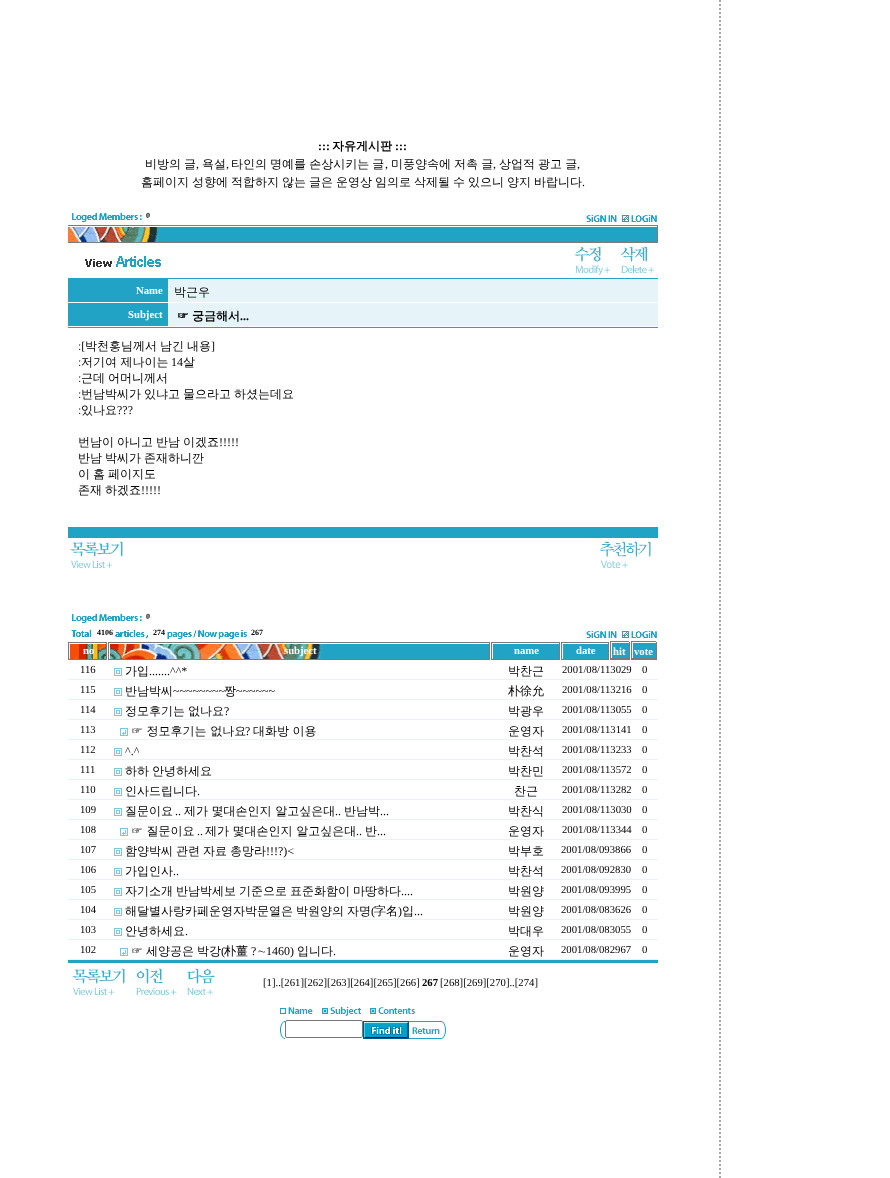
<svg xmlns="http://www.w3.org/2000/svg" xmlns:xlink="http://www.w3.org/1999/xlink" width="890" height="1178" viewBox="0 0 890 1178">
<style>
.cls-1{font:bold 12px Liberation Serif;fill:#000000}
.cls-2{font:bold 12px WenQuanYi Zen Hei;fill:#000000}
.cls-3{font:500 12px WenQuanYi Zen Hei;fill:#000000}
.cls-4{font:12px Liberation Serif;fill:#000000}
.cls-5{font:bold 8px Liberation Serif;fill:#000000}
.cls-6{font:bold 10.7px Liberation Serif;fill:#ffffff}
.cls-7{font:10.7px Liberation Serif;fill:#000000}
.cls-8{font:bold 10.7px Liberation Serif;fill:#000000}
</style>
<rect width="100%" height="100%" fill="#ffffff"/>
<image xlink:href="image0.png" x="719" y="0" width="2" height="1178"/>
<image xlink:href="image1.png" x="72" y="212" width="70" height="10"/>
<image xlink:href="image2.png" x="586" y="215" width="31" height="7"/>
<image xlink:href="image3.png" x="622" y="215" width="35" height="7"/>
<image xlink:href="image4.png" x="68" y="225" width="590" height="18"/>
<rect fill="#7b7b7b" x="657" y="226" width="1" height="16"/>
<rect fill="#e6f4f9" x="168" y="279" width="490" height="47"/>
<image xlink:href="image5.png" x="85" y="256" width="76" height="14"/>
<image xlink:href="image6.png" x="574" y="246" width="36" height="29"/>
<image xlink:href="image7.png" x="620" y="246" width="34" height="27"/>
<rect fill="#21a3c5" x="68" y="278" width="590" height="1"/>
<rect fill="#21a3c5" x="68" y="279" width="100" height="23"/>
<rect fill="#ffffff" x="168" y="302" width="490" height="1"/>
<rect fill="#21a3c5" x="68" y="303" width="100" height="23"/>
<rect fill="#21a3c5" x="68" y="327" width="590" height="1"/>
<rect fill="#21a3c5" x="68" y="527" width="590" height="11"/>
<image xlink:href="image8.png" x="70" y="541" width="53" height="27"/>
<image xlink:href="image9.png" x="599" y="541" width="52" height="28"/>
<image xlink:href="image1.png" x="72" y="613" width="70" height="10"/>
<image xlink:href="image10.png" x="71" y="629" width="21" height="8"/>
<image xlink:href="image11.png" x="115" y="629" width="33" height="10"/>
<image xlink:href="image12.png" x="167" y="630" width="80" height="9"/>
<image xlink:href="image2.png" x="586" y="631" width="31" height="7"/>
<image xlink:href="image3.png" x="622" y="631" width="35" height="7"/>
<image xlink:href="image13.png" x="68" y="642" width="39" height="18"/>
<image xlink:href="image14.png" x="108" y="642" width="381" height="18"/>
<rect fill="#7b7b7b" x="489" y="642" width="1" height="18"/>
<image xlink:href="image15.png" x="491" y="642" width="68" height="18"/>
<rect fill="#7b7b7b" x="559" y="642" width="1" height="18"/>
<image xlink:href="image16.png" x="561" y="642" width="47" height="18"/>
<rect fill="#7b7b7b" x="608" y="642" width="1" height="18"/>
<image xlink:href="image17.png" x="610" y="641" width="19" height="19"/>
<rect fill="#7b7b7b" x="629" y="642" width="1" height="18"/>
<image xlink:href="image18.png" x="631" y="641" width="25" height="19"/>
<rect fill="#7b7b7b" x="656" y="642" width="1" height="18"/>
<image xlink:href="image19.png" x="114" y="668" width="8" height="8"/>
<rect fill="#e6f4f9" x="68" y="679" width="590" height="1"/>
<image xlink:href="image19.png" x="114" y="688" width="8" height="8"/>
<rect fill="#e6f4f9" x="68" y="699" width="590" height="1"/>
<image xlink:href="image19.png" x="114" y="708" width="8" height="8"/>
<rect fill="#e6f4f9" x="68" y="719" width="590" height="1"/>
<image xlink:href="image20.png" x="120" y="728" width="8" height="8"/>
<rect fill="#e6f4f9" x="68" y="739" width="590" height="1"/>
<image xlink:href="image19.png" x="114" y="748" width="8" height="8"/>
<rect fill="#e6f4f9" x="68" y="759" width="590" height="1"/>
<image xlink:href="image19.png" x="114" y="768" width="8" height="8"/>
<rect fill="#e6f4f9" x="68" y="779" width="590" height="1"/>
<image xlink:href="image19.png" x="114" y="788" width="8" height="8"/>
<rect fill="#e6f4f9" x="68" y="799" width="590" height="1"/>
<image xlink:href="image19.png" x="114" y="808" width="8" height="8"/>
<rect fill="#e6f4f9" x="68" y="819" width="590" height="1"/>
<image xlink:href="image20.png" x="120" y="828" width="8" height="8"/>
<rect fill="#e6f4f9" x="68" y="839" width="590" height="1"/>
<image xlink:href="image19.png" x="114" y="848" width="8" height="8"/>
<rect fill="#e6f4f9" x="68" y="859" width="590" height="1"/>
<image xlink:href="image19.png" x="114" y="868" width="8" height="8"/>
<rect fill="#e6f4f9" x="68" y="879" width="590" height="1"/>
<image xlink:href="image19.png" x="114" y="888" width="8" height="8"/>
<rect fill="#e6f4f9" x="68" y="899" width="590" height="1"/>
<image xlink:href="image19.png" x="114" y="908" width="8" height="8"/>
<rect fill="#e6f4f9" x="68" y="919" width="590" height="1"/>
<image xlink:href="image19.png" x="114" y="928" width="8" height="8"/>
<rect fill="#e6f4f9" x="68" y="939" width="590" height="1"/>
<image xlink:href="image20.png" x="120" y="948" width="8" height="8"/>
<rect fill="#e6f4f9" x="68" y="959" width="590" height="1"/>
<rect fill="#21a3c5" x="68" y="960" width="590" height="3"/>
<image xlink:href="image8.png" x="72" y="968" width="53" height="27"/>
<image xlink:href="image21.png" x="136" y="968" width="41" height="27"/>
<image xlink:href="image22.png" x="187" y="968" width="28" height="27"/>
<image xlink:href="image23.png" x="280" y="1007" width="33" height="7"/>
<image xlink:href="image24.png" x="322" y="1006" width="39" height="10"/>
<image xlink:href="image25.png" x="370" y="1007" width="45" height="7"/>
<image xlink:href="image26.png" x="280" y="1021" width="5" height="18"/>
<rect fill="none" stroke="#767676" x="285.5" y="1020.5" width="77" height="17" rx="1.5"/>
<image xlink:href="image27.png" x="363" y="1021" width="46" height="18"/>
<image xlink:href="image28.png" x="409" y="1021" width="37" height="18"/>
<text class="cls-1" x="318" y="150">:::</text>
<text class="cls-2" x="332" y="150">자유게시판</text>
<text class="cls-1" x="395" y="150">:::</text>
<text class="cls-3" x="145" y="168" word-spacing="-0.5">비방의 글</text>
<text class="cls-4" x="196" y="168">,</text>
<text class="cls-3" x="202" y="168">욕설</text>
<text class="cls-4" x="226" y="168">,</text>
<text class="cls-3" x="231" y="168" word-spacing="-0.5">타인의 명예를 손상시키는 글</text>
<text class="cls-4" x="385" y="168">,</text>
<text class="cls-3" x="391" y="168" word-spacing="-0.5">미풍양속에 저촉 글</text>
<text class="cls-4" x="493" y="168">,</text>
<text class="cls-3" x="499" y="168" word-spacing="-0.5">상업적 광고 글</text>
<text class="cls-4" x="577" y="168">,</text>
<text class="cls-3" x="141" y="186" word-spacing="-0.6">홈페이지 성향에 적합하지 않는 글은 운영상 임의로 삭제될 수 있으니 양지 바랍니다</text>
<text class="cls-4" x="582" y="186">.</text>
<text class="cls-5" x="146" y="218">0</text>
<text class="cls-6" x="136" y="294">Name</text>
<text class="cls-3" x="174" y="296">박근우</text>
<text class="cls-6" x="128" y="318">Subject</text>
<text class="cls-2" x="177" y="320" word-spacing="-0.6">☞ 궁금해서</text>
<text class="cls-1" x="240" y="320">...</text>
<text class="cls-4" x="78" y="350">ː[</text>
<text class="cls-3" x="85" y="350" word-spacing="-0.6">박천홍님께서 남긴 내용</text>
<text class="cls-4" x="211" y="350">]</text>
<text class="cls-4" x="78" y="366">ː</text>
<text class="cls-3" x="81" y="366">저기여 제나이는</text>
<text class="cls-4" x="171" y="366">14</text>
<text class="cls-3" x="183" y="366">살</text>
<text class="cls-4" x="78" y="382">ː</text>
<text class="cls-3" x="81" y="382" word-spacing="-0.6">근데 어머니께서</text>
<text class="cls-4" x="78" y="398">ː</text>
<text class="cls-3" x="81" y="398" word-spacing="-0.6">번남박씨가 있냐고 물으라고 하셨는데요</text>
<text class="cls-4" x="78" y="414">ː</text>
<text class="cls-3" x="81" y="414">있나요</text>
<text class="cls-4" x="117" y="414">???</text>
<text class="cls-3" x="78" y="446" word-spacing="-0.6">번남이 아니고 반남 이겠죠</text>
<text class="cls-4" x="219" y="446">!!!!!</text>
<text class="cls-3"><tspan x="78" y="462" word-spacing="-0.6">반남 박씨가 존재하니깐</tspan><tspan x="78" y="478" word-spacing="-0.6">이 홈 페이지도</tspan><tspan x="78" y="494" word-spacing="-0.6">존재 하겠죠</tspan></text>
<text class="cls-4" x="141" y="494">!!!!!</text>
<text class="cls-5" x="146" y="619">0</text>
<text class="cls-5" x="97" y="635">4106</text>
<text class="cls-5" x="153" y="635">274</text>
<text class="cls-5" x="251" y="635">267</text>
<text class="cls-6" x="83" y="654">no</text>
<text class="cls-6" x="284" y="654">subject</text>
<text class="cls-6" x="514" y="654">name</text>
<text class="cls-6" x="576" y="654">date</text>
<text class="cls-6" x="613" y="655">hit</text>
<text class="cls-6" x="634" y="655">vote</text>
<text class="cls-7" x="80" y="673">116</text>
<text class="cls-3" x="125" y="675">가입</text>
<text class="cls-4" x="149" y="675">.......^^*</text>
<text class="cls-3" x="508" y="675">박찬근</text>
<text class="cls-7" x="562" y="673">2001/08/113029</text>
<text class="cls-7" x="642" y="673">0</text>
<text class="cls-7" x="80" y="693">115</text>
<text class="cls-3" x="125" y="695">반남박씨</text>
<text class="cls-4" x="173" y="695">~~~~~~~~</text>
<text class="cls-3" x="224" y="695">짱</text>
<text class="cls-4" x="236" y="695">~~~~~~</text>
<text class="cls-3" x="508" y="695">朴徐允</text>
<text class="cls-7" x="562" y="693">2001/08/113216</text>
<text class="cls-7" x="642" y="693">0</text>
<text class="cls-7" x="80" y="713">114</text>
<text class="cls-3" x="125" y="715" word-spacing="-0.6">정모후기는 없나요</text>
<text class="cls-4" x="224" y="715">?</text>
<text class="cls-3" x="508" y="715">박광우</text>
<text class="cls-7" x="562" y="713">2001/08/113055</text>
<text class="cls-7" x="642" y="713">0</text>
<text class="cls-7" x="80" y="733">113</text>
<text class="cls-3" x="131" y="735">☞ 정모후기는 없나요</text>
<text class="cls-4" x="245" y="735">?</text>
<text class="cls-3" x="253" y="735">대화방 이용</text>
<text class="cls-3" x="508" y="735">운영자</text>
<text class="cls-7" x="562" y="733">2001/08/113141</text>
<text class="cls-7" x="642" y="733">0</text>
<text class="cls-7" x="80" y="753">112</text>
<text class="cls-4" x="125" y="755">^.^</text>
<text class="cls-3" x="508" y="755">박찬석</text>
<text class="cls-7" x="562" y="753">2001/08/113233</text>
<text class="cls-7" x="642" y="753">0</text>
<text class="cls-7" x="80" y="773">111</text>
<text class="cls-3" x="125" y="775" word-spacing="-0.6">하하 안녕하세요</text>
<text class="cls-3" x="508" y="775">박찬민</text>
<text class="cls-7" x="562" y="773">2001/08/113572</text>
<text class="cls-7" x="642" y="773">0</text>
<text class="cls-7" x="80" y="793">110</text>
<text class="cls-3" x="125" y="795">인사드립니다</text>
<text class="cls-4" x="197" y="795">.</text>
<text class="cls-3" x="514" y="795">찬근</text>
<text class="cls-7" x="562" y="793">2001/08/113282</text>
<text class="cls-7" x="642" y="793">0</text>
<text class="cls-7" x="80" y="813">109</text>
<text class="cls-3" x="125" y="815">질문이요</text>
<text class="cls-4" x="175" y="815">..</text>
<text class="cls-3" x="184" y="815">제가 몇대손인지 알고싶은대</text>
<text class="cls-4" x="335" y="815">..</text>
<text class="cls-3" x="344" y="815">반남박</text>
<text class="cls-4" x="380" y="815">...</text>
<text class="cls-3" x="508" y="815">박찬식</text>
<text class="cls-7" x="562" y="813">2001/08/113030</text>
<text class="cls-7" x="642" y="813">0</text>
<text class="cls-7" x="80" y="833">108</text>
<text class="cls-3" x="131" y="835">☞ 질문이요</text>
<text class="cls-4" x="197" y="835">..</text>
<text class="cls-3" x="205" y="835">제가 몇대손인지 알고싶은대</text>
<text class="cls-4" x="356" y="835">..</text>
<text class="cls-3" x="365" y="835">반</text>
<text class="cls-4" x="377" y="835">...</text>
<text class="cls-3" x="508" y="835">운영자</text>
<text class="cls-7" x="562" y="833">2001/08/113344</text>
<text class="cls-7" x="642" y="833">0</text>
<text class="cls-7" x="80" y="853">107</text>
<text class="cls-3" x="125" y="855" word-spacing="-0.6">함양박씨 관련 자료 총망라</text>
<text class="cls-4" x="266" y="855">!!!?)&lt;</text>
<text class="cls-3" x="508" y="855">박부호</text>
<text class="cls-7" x="561" y="853">2001/08/093866</text>
<text class="cls-7" x="642" y="853">0</text>
<text class="cls-7" x="80" y="873">106</text>
<text class="cls-3" x="125" y="875">가입인사</text>
<text class="cls-4" x="173" y="875">..</text>
<text class="cls-3" x="508" y="875">박찬석</text>
<text class="cls-7" x="561" y="873">2001/08/092830</text>
<text class="cls-7" x="642" y="873">0</text>
<text class="cls-7" x="80" y="893">105</text>
<text class="cls-3" x="125" y="895" word-spacing="-0.6">자기소개 반남박세보 기준으로 표준화함이 마땅하다</text>
<text class="cls-4" x="401" y="895">....</text>
<text class="cls-3" x="508" y="895">박원양</text>
<text class="cls-7" x="561" y="893">2001/08/093995</text>
<text class="cls-7" x="642" y="893">0</text>
<text class="cls-7" x="80" y="913">104</text>
<text class="cls-3" x="125" y="915" word-spacing="-0.6">해달별사랑카페운영자박문열은 박원양의 자명</text>
<text class="cls-4" x="371" y="915">(</text>
<text class="cls-3" x="374" y="915">字名</text>
<text class="cls-4" x="398" y="915">)</text>
<text class="cls-3" x="402" y="915">입</text>
<text class="cls-4" x="414" y="915">...</text>
<text class="cls-3" x="508" y="915">박원양</text>
<text class="cls-7" x="561" y="913">2001/08/083626</text>
<text class="cls-7" x="642" y="913">0</text>
<text class="cls-7" x="80" y="933">103</text>
<text class="cls-3" x="125" y="935">안녕하세요</text>
<text class="cls-4" x="185" y="935">.</text>
<text class="cls-3" x="508" y="935">박대우</text>
<text class="cls-7" x="561" y="933">2001/08/083055</text>
<text class="cls-7" x="642" y="933">0</text>
<text class="cls-7" x="80" y="953">102</text>
<text class="cls-3" x="131" y="955" word-spacing="-0.6">☞ 세양공은 박강</text>
<text class="cls-4" x="221" y="955">(</text>
<text class="cls-3" x="224" y="955">朴薑</text>
<text class="cls-4" x="251" y="955">?</text>
<text class="cls-3" x="257" y="955">∼</text>
<text class="cls-4" x="266" y="955">1460)</text>
<text class="cls-3" x="297" y="955">입니다</text>
<text class="cls-4" x="333" y="955">.</text>
<text class="cls-3" x="508" y="955">운영자</text>
<text class="cls-7" x="561" y="953">2001/08/082967</text>
<text class="cls-7" x="642" y="953">0</text>
<text class="cls-7" x="263" y="986">[1]..[261][262][263][264][265][266]</text>
<text class="cls-8" x="422" y="986">267</text>
<text class="cls-7" x="440" y="986">[268][269][270]..[274]</text>
</svg>
